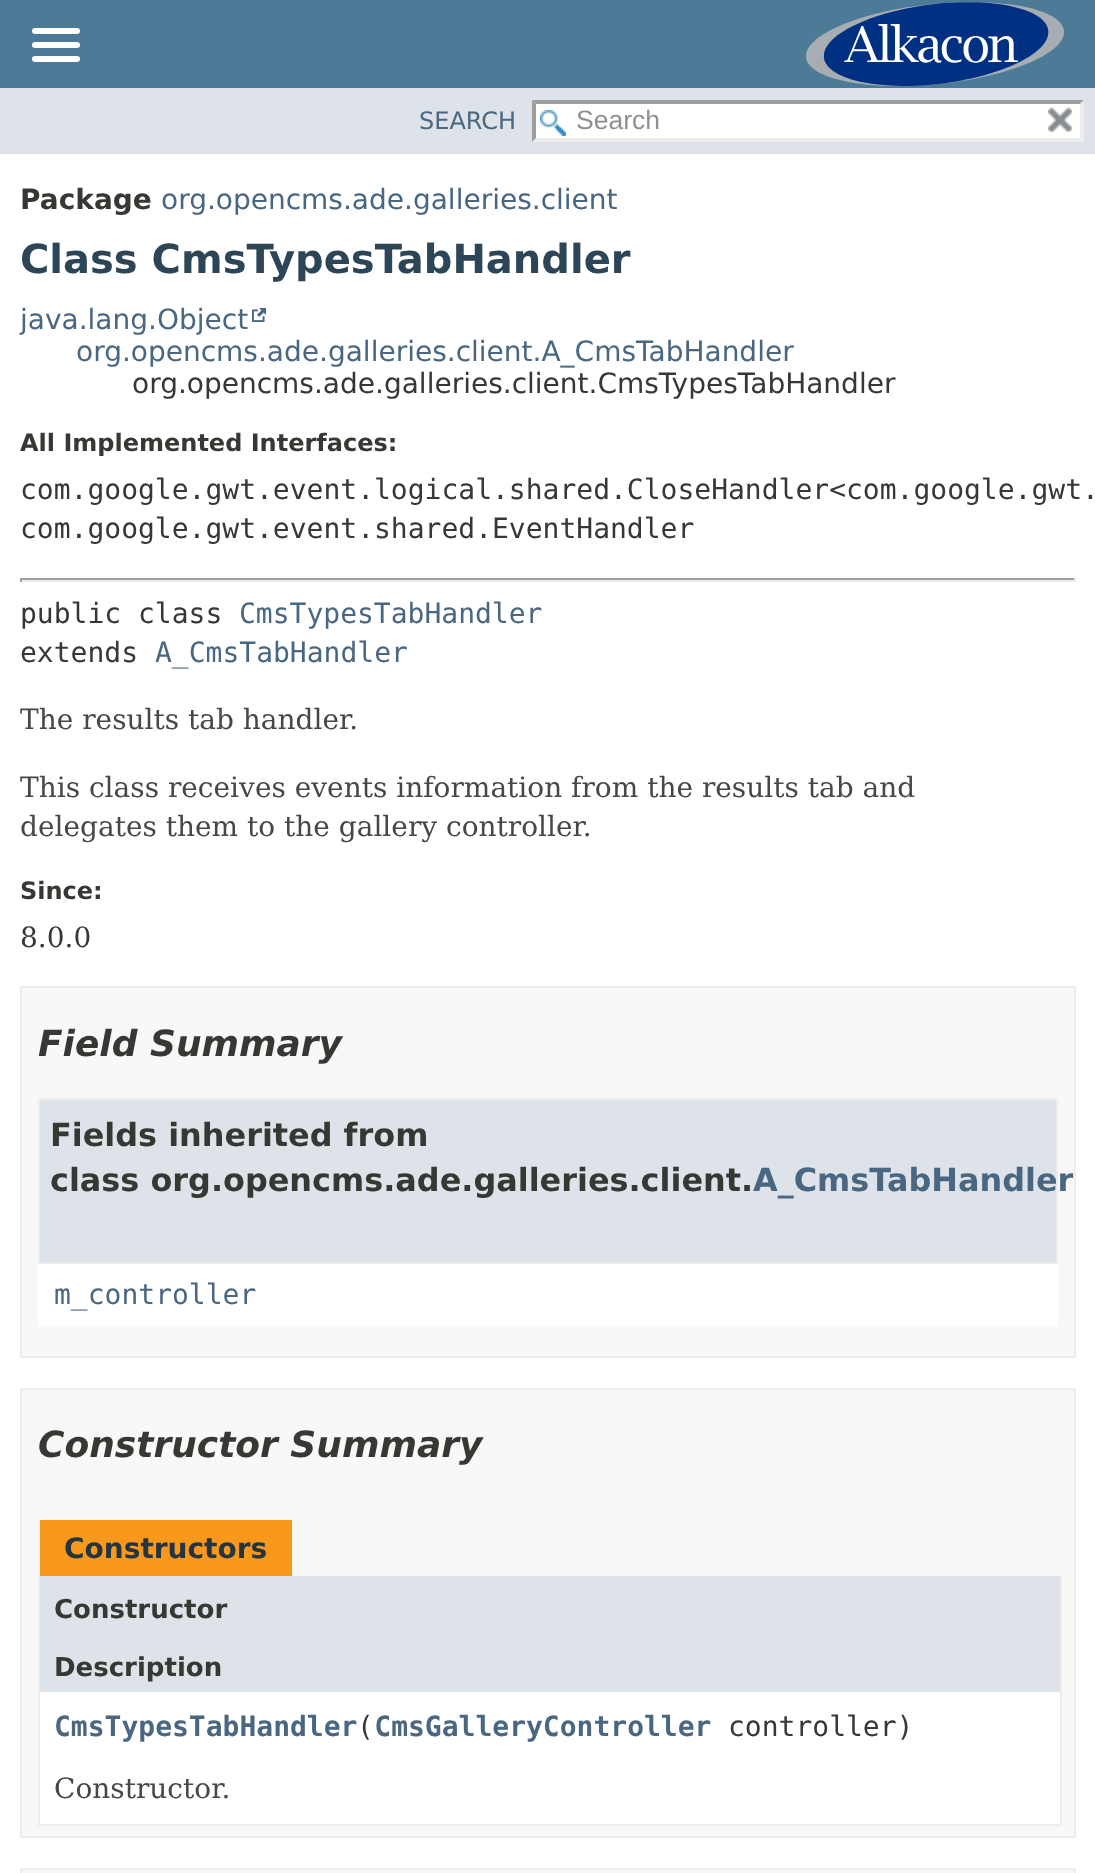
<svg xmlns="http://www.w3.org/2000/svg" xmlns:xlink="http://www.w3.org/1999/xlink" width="1095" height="1873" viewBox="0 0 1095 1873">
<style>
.cls-1{font:24px DejaVu Sans;fill:#4a6782}
.cls-2{font:26.5px Liberation Sans;fill:#909090}
.cls-3{font:bold 28px DejaVu Sans;fill:#353833}
.cls-4{font:28px DejaVu Sans;fill:#4a6782}
.cls-5{font:bold 40px DejaVu Sans;fill:#2c4557}
.cls-6{font:28px DejaVu Sans;fill:#353833}
.cls-7{font:bold 24px DejaVu Sans;fill:#353833}
.cls-8{font:28px DejaVu Sans Mono;fill:#353833}
.cls-9{font:28px DejaVu Sans Mono;fill:#4a6782}
.cls-10{font:28px DejaVu Serif;fill:#474747}
.cls-11{font:28px DejaVu Serif;fill:#353833}
.cls-12{font:italic bold 36px DejaVu Sans;fill:#353833}
.cls-13{font:bold 31.9px DejaVu Sans;fill:#353833}
.cls-14{font:bold 31.9px DejaVu Sans;fill:#4a6782}
.cls-15{font:bold 28px DejaVu Sans;fill:#253441}
.cls-16{font:bold 26px DejaVu Sans;fill:#353833}
.cls-17{font:bold 28px DejaVu Sans Mono;fill:#4a6782}
</style>
<rect width="100%" height="100%" fill="#ffffff"/>
<rect fill="#4d7a97" x="0" y="0" width="1095" height="88"/>
<rect fill="#ffffff" x="32" y="28" width="48" height="6" rx="3"/>
<rect fill="#ffffff" x="32" y="42" width="48" height="6" rx="3"/>
<rect fill="#ffffff" x="32" y="56" width="48" height="6" rx="3"/>
<image xlink:href="image0.png" x="806" y="2" width="258" height="84"/>
<rect fill="#dee3e9" x="0" y="88" width="1095" height="66"/>
<rect fill="#ffffff" x="532" y="100" width="552" height="42"/>
<image xlink:href="image1.png" x="540" y="110" width="26" height="26"/>
<path fill="#9e9e9e" d="M532 100H1084L1080 104H536Z"/>
<path fill="#ededed" d="M1084 100V142L1080 138V104Z"/>
<path fill="#ededed" d="M1084 142H532L536 138H1080Z"/>
<path fill="#9e9e9e" d="M532 142V100L536 104V138Z"/>
<image xlink:href="image2.png" x="1048" y="107" width="24" height="25"/>
<image xlink:href="image3.png" x="252" y="308" width="14" height="14"/>
<rect fill="#9f9f9f" x="20" y="578" width="1056" height="2"/>
<rect fill="#eeeeee" x="1074" y="578" width="2" height="4"/>
<rect fill="#eeeeee" x="20" y="580" width="1056" height="2"/>
<rect fill="#9f9f9f" x="20" y="578" width="2" height="4"/>
<rect fill="#f8f8f8" stroke="#ededed" stroke-width="2" x="21" y="987" width="1054" height="370"/>
<rect fill="#ffffff" x="38" y="1264" width="1020" height="62"/>
<rect fill="#dee3e9" stroke="#ededed" stroke-width="2" x="39" y="1099" width="1018" height="164"/>
<rect fill="#f8f8f8" stroke="#ededed" stroke-width="2" x="21" y="1389" width="1054" height="448"/>
<rect fill="#f8981d" x="40" y="1520" width="252" height="56"/>
<rect fill="#ededed" x="1060" y="1576" width="2" height="250"/>
<rect fill="#ededed" x="38" y="1824" width="1024" height="2"/>
<rect fill="#ededed" x="38" y="1576" width="2" height="250"/>
<rect fill="#dee3e9" x="40" y="1576" width="1020" height="116"/>
<rect fill="#ffffff" x="40" y="1692" width="1020" height="132"/>
<rect fill="#f8f8f8" stroke="#ededed" stroke-width="2" x="21" y="1869" width="1054" height="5"/>
<text class="cls-1" x="419" y="129">SEARCH</text>
<text class="cls-2" x="576" y="129">Search</text>
<text class="cls-3" x="20" y="209">Package</text>
<text class="cls-4" x="161" y="209">org.opencms.ade.galleries.client</text>
<text class="cls-5" x="20" y="273">Class CmsTypesTabHandler</text>
<text class="cls-4" x="20" y="329">java.lang.Object</text>
<text class="cls-4" x="76" y="361">org.opencms.ade.galleries.client.A_CmsTabHandler</text>
<text class="cls-6" x="132" y="393">org.opencms.ade.galleries.client.CmsTypesTabHandler</text>
<text class="cls-7" x="20" y="451">All Implemented Interfaces:</text>
<text class="cls-8"><tspan x="20" y="499">com.google.gwt.event.logical.shared.CloseHandler&lt;com.google.gwt.</tspan><tspan x="20" y="538">com.google.gwt.event.shared.EventHandler</tspan></text>
<text class="cls-8" x="20" y="623">public class</text>
<text class="cls-9" x="239" y="623">CmsTypesTabHandler</text>
<text class="cls-8" x="20" y="662">extends</text>
<text class="cls-9" x="155" y="662">A_CmsTabHandler</text>
<text class="cls-10" x="20" y="729">The results tab handler.</text>
<text class="cls-10"><tspan x="20" y="797">This class receives events information from the results tab and</tspan><tspan x="20" y="836">delegates them to the gallery controller.</tspan></text>
<text class="cls-7" x="20" y="899">Since:</text>
<text class="cls-11" x="20" y="947">8.0.0</text>
<text class="cls-12" x="38" y="1056">Field Summary</text>
<text class="cls-13"><tspan x="50" y="1146">Fields inherited from</tspan><tspan x="50" y="1191">class org.opencms.ade.galleries.client.</tspan></text>
<text class="cls-14" x="753" y="1191">A_CmsTabHandler</text>
<text class="cls-9" x="54" y="1304">m_controller</text>
<text class="cls-12" x="38" y="1457">Constructor Summary</text>
<text class="cls-15" x="64" y="1558">Constructors</text>
<text class="cls-16" x="54" y="1618">Constructor</text>
<text class="cls-16" x="54" y="1676">Description</text>
<text class="cls-17" x="54" y="1736">CmsTypesTabHandler CmsGalleryController</text>
<text class="cls-8" x="357" y="1736">(</text>
<text class="cls-8" x="728" y="1736">controller)</text>
<text class="cls-10" x="54" y="1798">Constructor.</text>
</svg>
